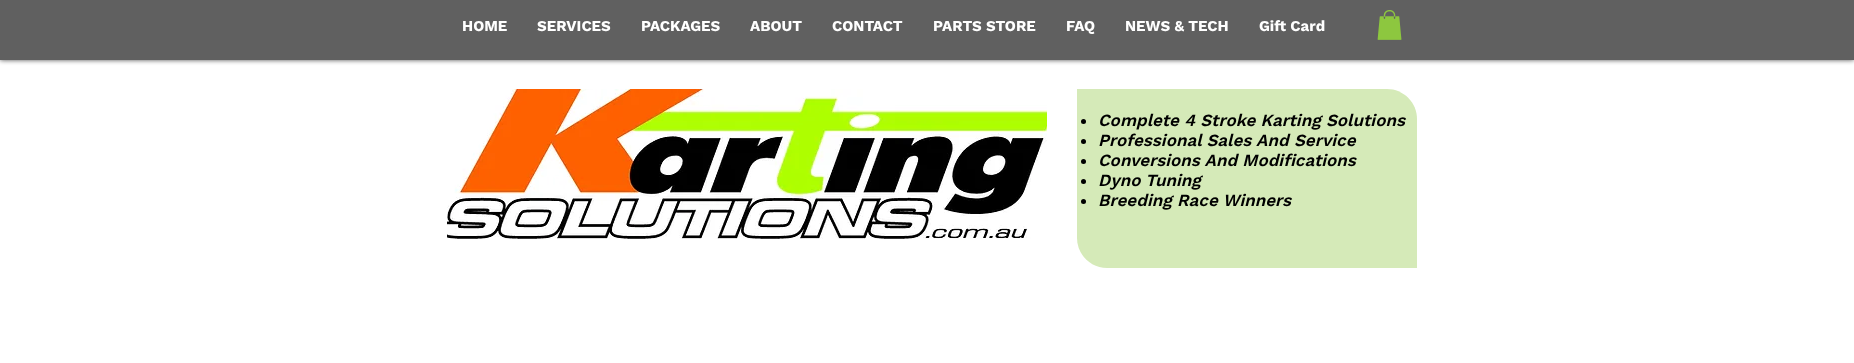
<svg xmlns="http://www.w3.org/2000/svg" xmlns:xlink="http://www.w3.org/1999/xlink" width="1854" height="363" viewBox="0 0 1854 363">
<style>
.cls-1{font:bold 15px Work Sans;fill:#ffffff}
.cls-2{font:italic 600 17px Work Sans;fill:#000000}
</style>
<rect width="100%" height="100%" fill="#ffffff"/>
<rect fill="#000000" fill-opacity="0.7" filter="blur(2.5px)" x="0" y="0" width="1854" height="60"/>
<rect fill="#606060" x="0" y="0" width="1854" height="60"/>
<image xlink:href="image0.png" x="1377" y="10" width="25" height="30"/>
<image xlink:href="image1.png" x="447" y="89" width="600" height="150"/>
<path fill="#d5eab8" d="M1077 89H1387C1403.5 89 1417 102.5 1417 119V268H1107C1090.5 268 1077 254.5 1077 238Z"/>
<circle fill="#000000" cx="1083.5" cy="121.5" r="2.5"/>
<circle fill="#000000" cx="1083.5" cy="141.5" r="2.5"/>
<circle fill="#000000" cx="1083.5" cy="161.5" r="2.5"/>
<circle fill="#000000" cx="1083.5" cy="181.5" r="2.5"/>
<circle fill="#000000" cx="1083.5" cy="201.5" r="2.5"/>
<text class="cls-1" x="462" y="31">HOME</text>
<text class="cls-1" x="537" y="31">SERVICES</text>
<text class="cls-1" x="641" y="31">PACKAGES</text>
<text class="cls-1" x="750" y="31">ABOUT</text>
<text class="cls-1" x="832" y="31">CONTACT</text>
<text class="cls-1" x="933" y="31">PARTS STORE</text>
<text class="cls-1" x="1066" y="31">FAQ</text>
<text class="cls-1" x="1125" y="31">NEWS &amp; TECH</text>
<text class="cls-1" x="1259" y="31">Gift Card</text>
<text class="cls-2"><tspan x="1098" y="126">Complete 4 Stroke Karting Solutions</tspan><tspan x="1098" y="146">Professional Sales And Service</tspan><tspan x="1098" y="166">Conversions And Modifications</tspan><tspan x="1098" y="186">Dyno Tuning</tspan><tspan x="1098" y="206">Breeding Race Winners</tspan></text>
</svg>
